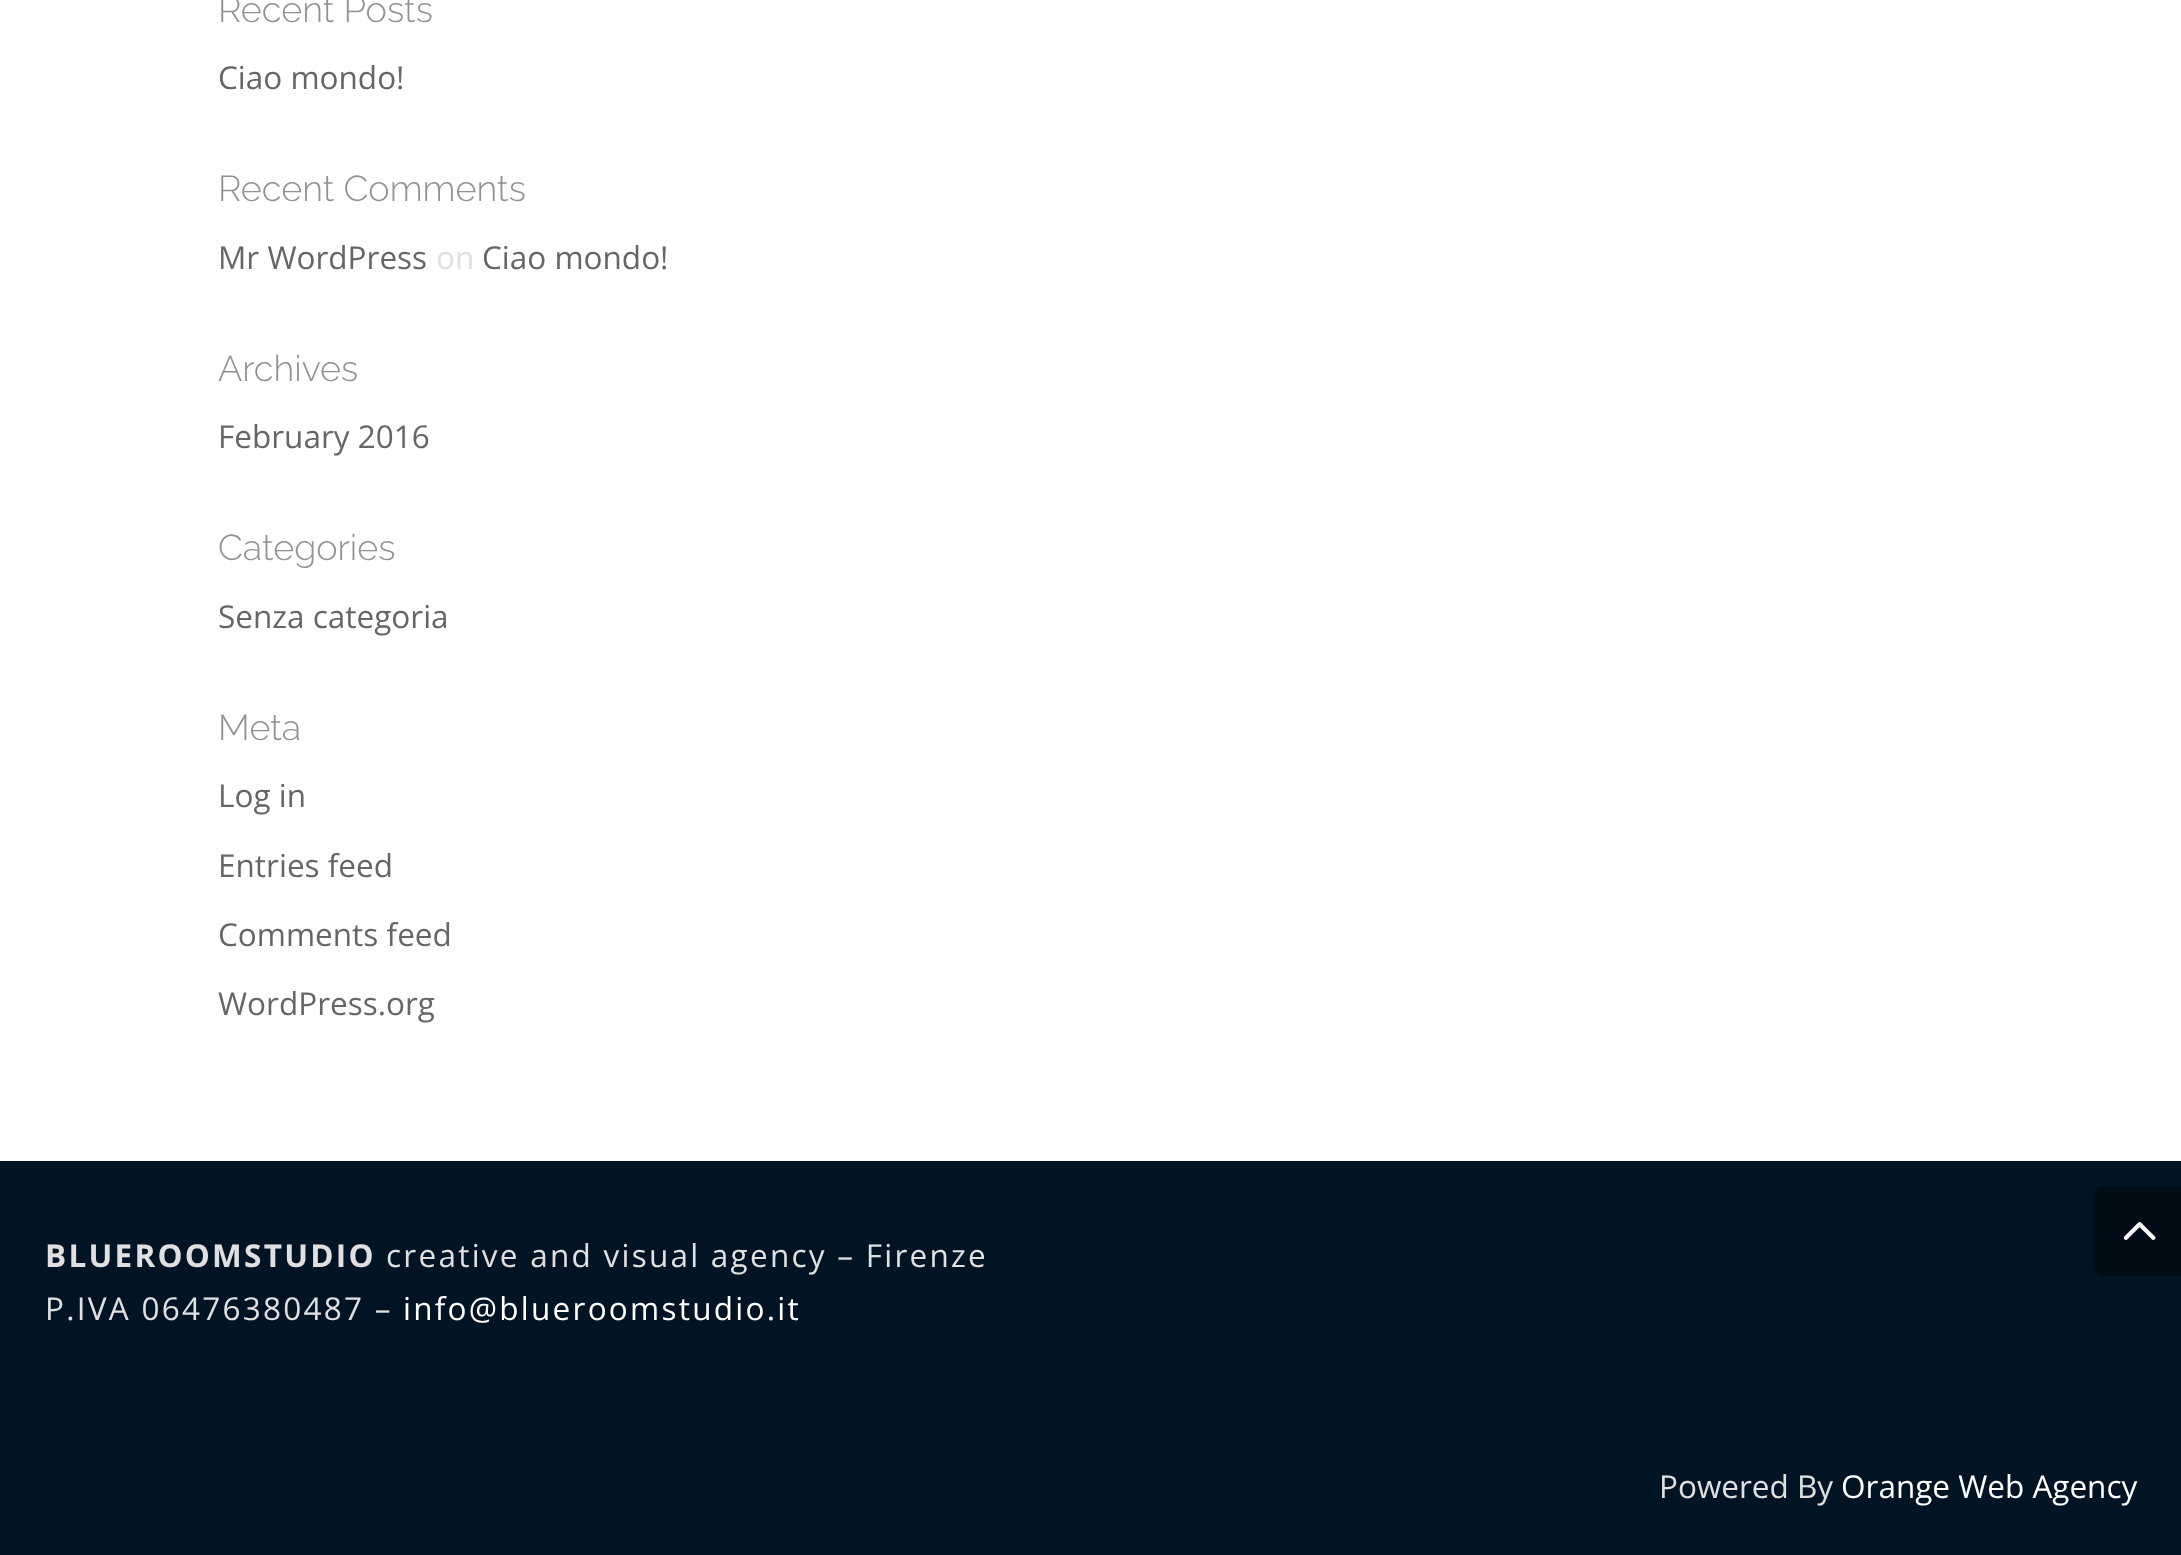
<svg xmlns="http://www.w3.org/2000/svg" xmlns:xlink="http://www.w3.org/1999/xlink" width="2181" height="1555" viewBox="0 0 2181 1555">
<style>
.cls-1{font:300 36px Raleway;fill:#919191}
.cls-2{font:31.5px Open Sans;fill:#666666}
.cls-3{font:31.5px Open Sans;fill:#e0e0e0}
.cls-4{font:bold 31.5px Open Sans;letter-spacing:2.25px;fill:#e0e0e0}
.cls-5{font:31.5px Open Sans;letter-spacing:2.25px;fill:#e0e0e0}
.cls-6{font:31.5px Open Sans;letter-spacing:2.25px;fill:#ffffff}
.cls-7{font:31.5px Open Sans;fill:#ffffff}
</style>
<rect width="100%" height="100%" fill="#ffffff"/>
<rect fill="#011424" x="0" y="1161" width="2181" height="394"/>
<path fill="#010c16" d="M2104 1186H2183V1276H2104C2098 1276 2093 1271 2093 1265V1197C2093 1191 2098 1186 2104 1186Z"/>
<image xlink:href="image0.png" x="2123" y="1222" width="33" height="18"/>
<text class="cls-1" x="218" y="22">Recent Posts</text>
<text class="cls-2" x="218" y="89">Ciao mondo!</text>
<text class="cls-1" x="218" y="201">Recent Comments</text>
<text class="cls-2" x="218" y="269">Mr WordPress</text>
<text class="cls-3" x="436" y="269">on</text>
<text class="cls-2" x="482" y="269">Ciao mondo!</text>
<text class="cls-1" x="218" y="381">Archives</text>
<text class="cls-2" x="218" y="448">February 2016</text>
<text class="cls-1" x="218" y="560">Categories</text>
<text class="cls-2" x="218" y="628">Senza categoria</text>
<text class="cls-1" x="218" y="740">Meta</text>
<text class="cls-2" x="218" y="807">Log in</text>
<text class="cls-2" x="218" y="877">Entries feed</text>
<text class="cls-2" x="218" y="946">Comments feed</text>
<text class="cls-2" x="218" y="1015">WordPress.org</text>
<text class="cls-4" x="45" y="1267">BLUEROOMSTUDIO</text>
<text class="cls-5" x="386" y="1267">creative and visual agency – Firenze</text>
<text class="cls-5" x="45" y="1320">P.IVA 06476380487 –</text>
<text class="cls-6" x="403" y="1320">info@blueroomstudio.it</text>
<text class="cls-3" x="1659" y="1498">Powered By</text>
<text class="cls-7" x="1841" y="1498">Orange Web Agency</text>
</svg>
